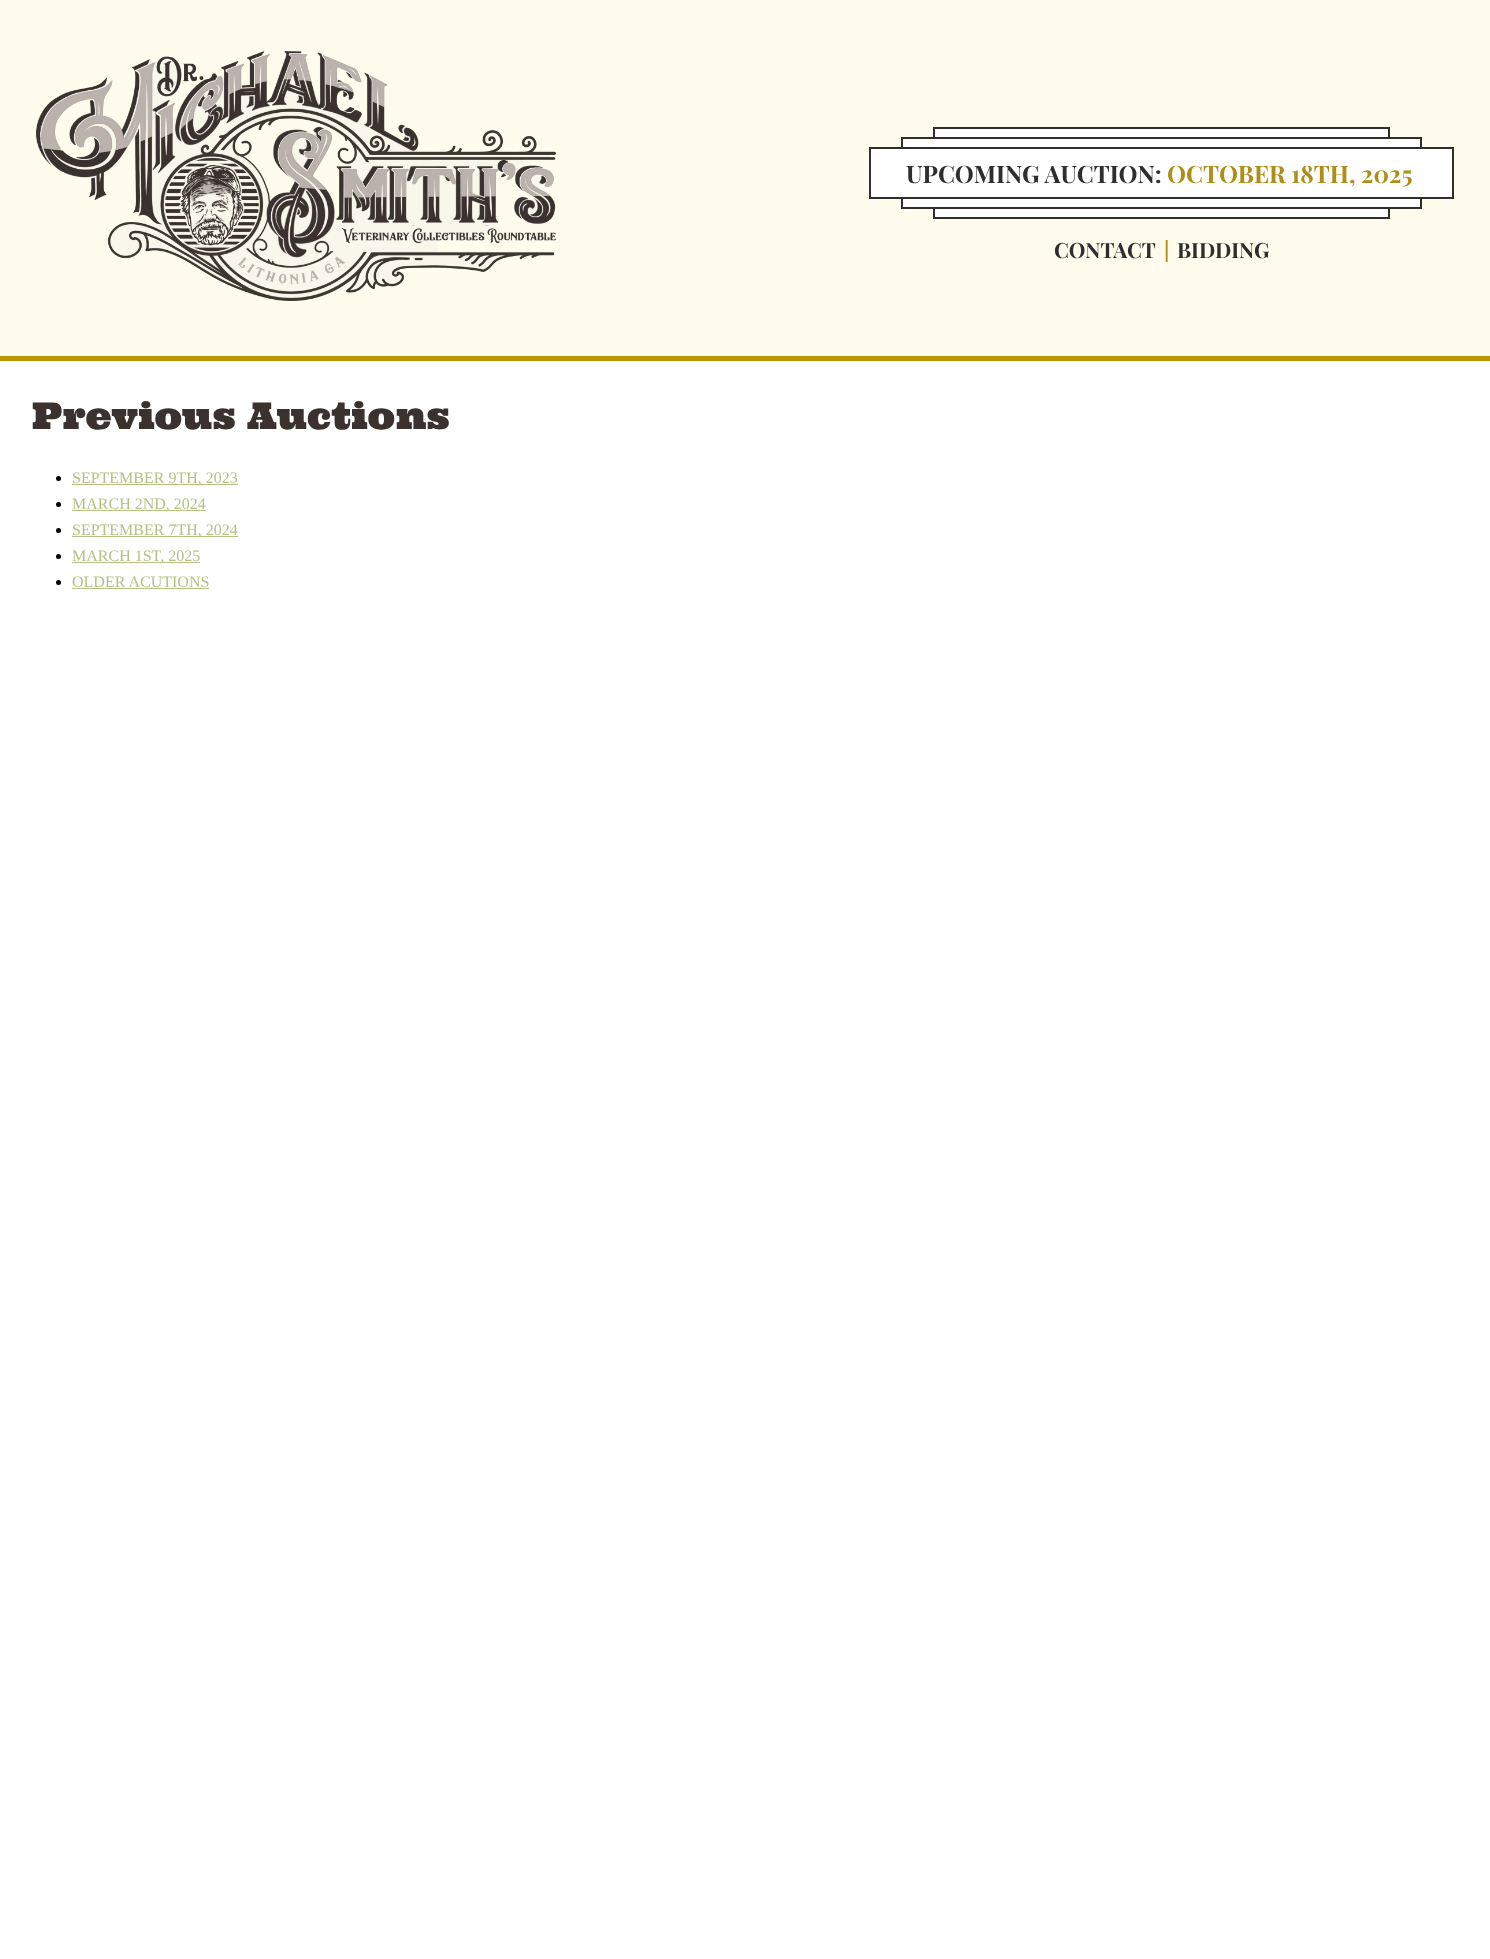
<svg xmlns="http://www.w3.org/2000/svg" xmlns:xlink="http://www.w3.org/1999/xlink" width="1490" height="1959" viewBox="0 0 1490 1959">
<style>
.cls-1{font:bold 24px Playfair Display;fill:#2e2e2e}
.cls-2{font:bold 24px Playfair Display;fill:#af8d17}
.cls-3{font:bold 21px Playfair Display;fill:#2e2e2e}
.cls-4{font:bold 21px Playfair Display;fill:#af8d17}
.cls-5{font:37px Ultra;fill:#3b312f}
.cls-6{font:16px Liberation Serif;fill:#b4c185}
</style>
<rect width="100%" height="100%" fill="#ffffff"/>
<rect fill="#fffbed" x="0" y="0" width="1490" height="356"/>
<rect fill="#bd9509" x="0" y="356" width="1490" height="5"/>
<image xlink:href="image0.png" x="36" y="51" width="520" height="250"/>
<rect fill="#ffffff" x="935" y="129" width="453" height="8"/>
<rect fill="#2e2e2e" x="933" y="127" width="457" height="2"/>
<rect fill="#2e2e2e" x="1388" y="127" width="2" height="10"/>
<rect fill="#2e2e2e" x="933" y="127" width="2" height="10"/>
<rect fill="#ffffff" x="903" y="139" width="517" height="8"/>
<rect fill="#2e2e2e" x="901" y="137" width="521" height="2"/>
<rect fill="#2e2e2e" x="1420" y="137" width="2" height="10"/>
<rect fill="#2e2e2e" x="901" y="137" width="2" height="10"/>
<rect fill="#ffffff" stroke="#2e2e2e" stroke-width="2" x="870" y="148" width="583" height="50"/>
<rect fill="#ffffff" x="903" y="199" width="517" height="8"/>
<rect fill="#2e2e2e" x="1420" y="199" width="2" height="10"/>
<rect fill="#2e2e2e" x="901" y="207" width="521" height="2"/>
<rect fill="#2e2e2e" x="901" y="199" width="2" height="10"/>
<rect fill="#ffffff" x="935" y="209" width="453" height="8"/>
<rect fill="#2e2e2e" x="1388" y="209" width="2" height="10"/>
<rect fill="#2e2e2e" x="933" y="217" width="457" height="2"/>
<rect fill="#2e2e2e" x="933" y="209" width="2" height="10"/>
<circle fill="#000000" cx="58.5" cy="478.5" r="2.5"/>
<rect fill="#b4c185" x="72" y="484" width="166" height="1"/>
<circle fill="#000000" cx="58.5" cy="504.5" r="2.5"/>
<rect fill="#b4c185" x="72" y="510" width="134" height="1"/>
<circle fill="#000000" cx="58.5" cy="530.5" r="2.5"/>
<rect fill="#b4c185" x="72" y="536" width="166" height="1"/>
<circle fill="#000000" cx="58.5" cy="556.5" r="2.5"/>
<rect fill="#b4c185" x="72" y="562" width="128" height="1"/>
<circle fill="#000000" cx="58.5" cy="582.5" r="2.5"/>
<rect fill="#b4c185" x="72" y="588" width="137" height="1"/>
<text class="cls-1" x="906" y="183">UPCOMING AUCTION:</text>
<text class="cls-2" x="1167" y="183">OCTOBER 18TH, 2025</text>
<text class="cls-3" x="1054" y="258">CONTACT</text>
<text class="cls-4" x="1164" y="258">|</text>
<text class="cls-3" x="1177" y="258">BIDDING</text>
<text class="cls-5" x="32" y="429">Previous Auctions</text>
<text class="cls-6"><tspan x="72" y="483">SEPTEMBER 9TH, 2023</tspan><tspan x="72" y="509">MARCH 2ND, 2024</tspan><tspan x="72" y="535">SEPTEMBER 7TH, 2024</tspan><tspan x="72" y="561">MARCH 1ST, 2025</tspan><tspan x="72" y="587">OLDER ACUTIONS</tspan></text>
</svg>
